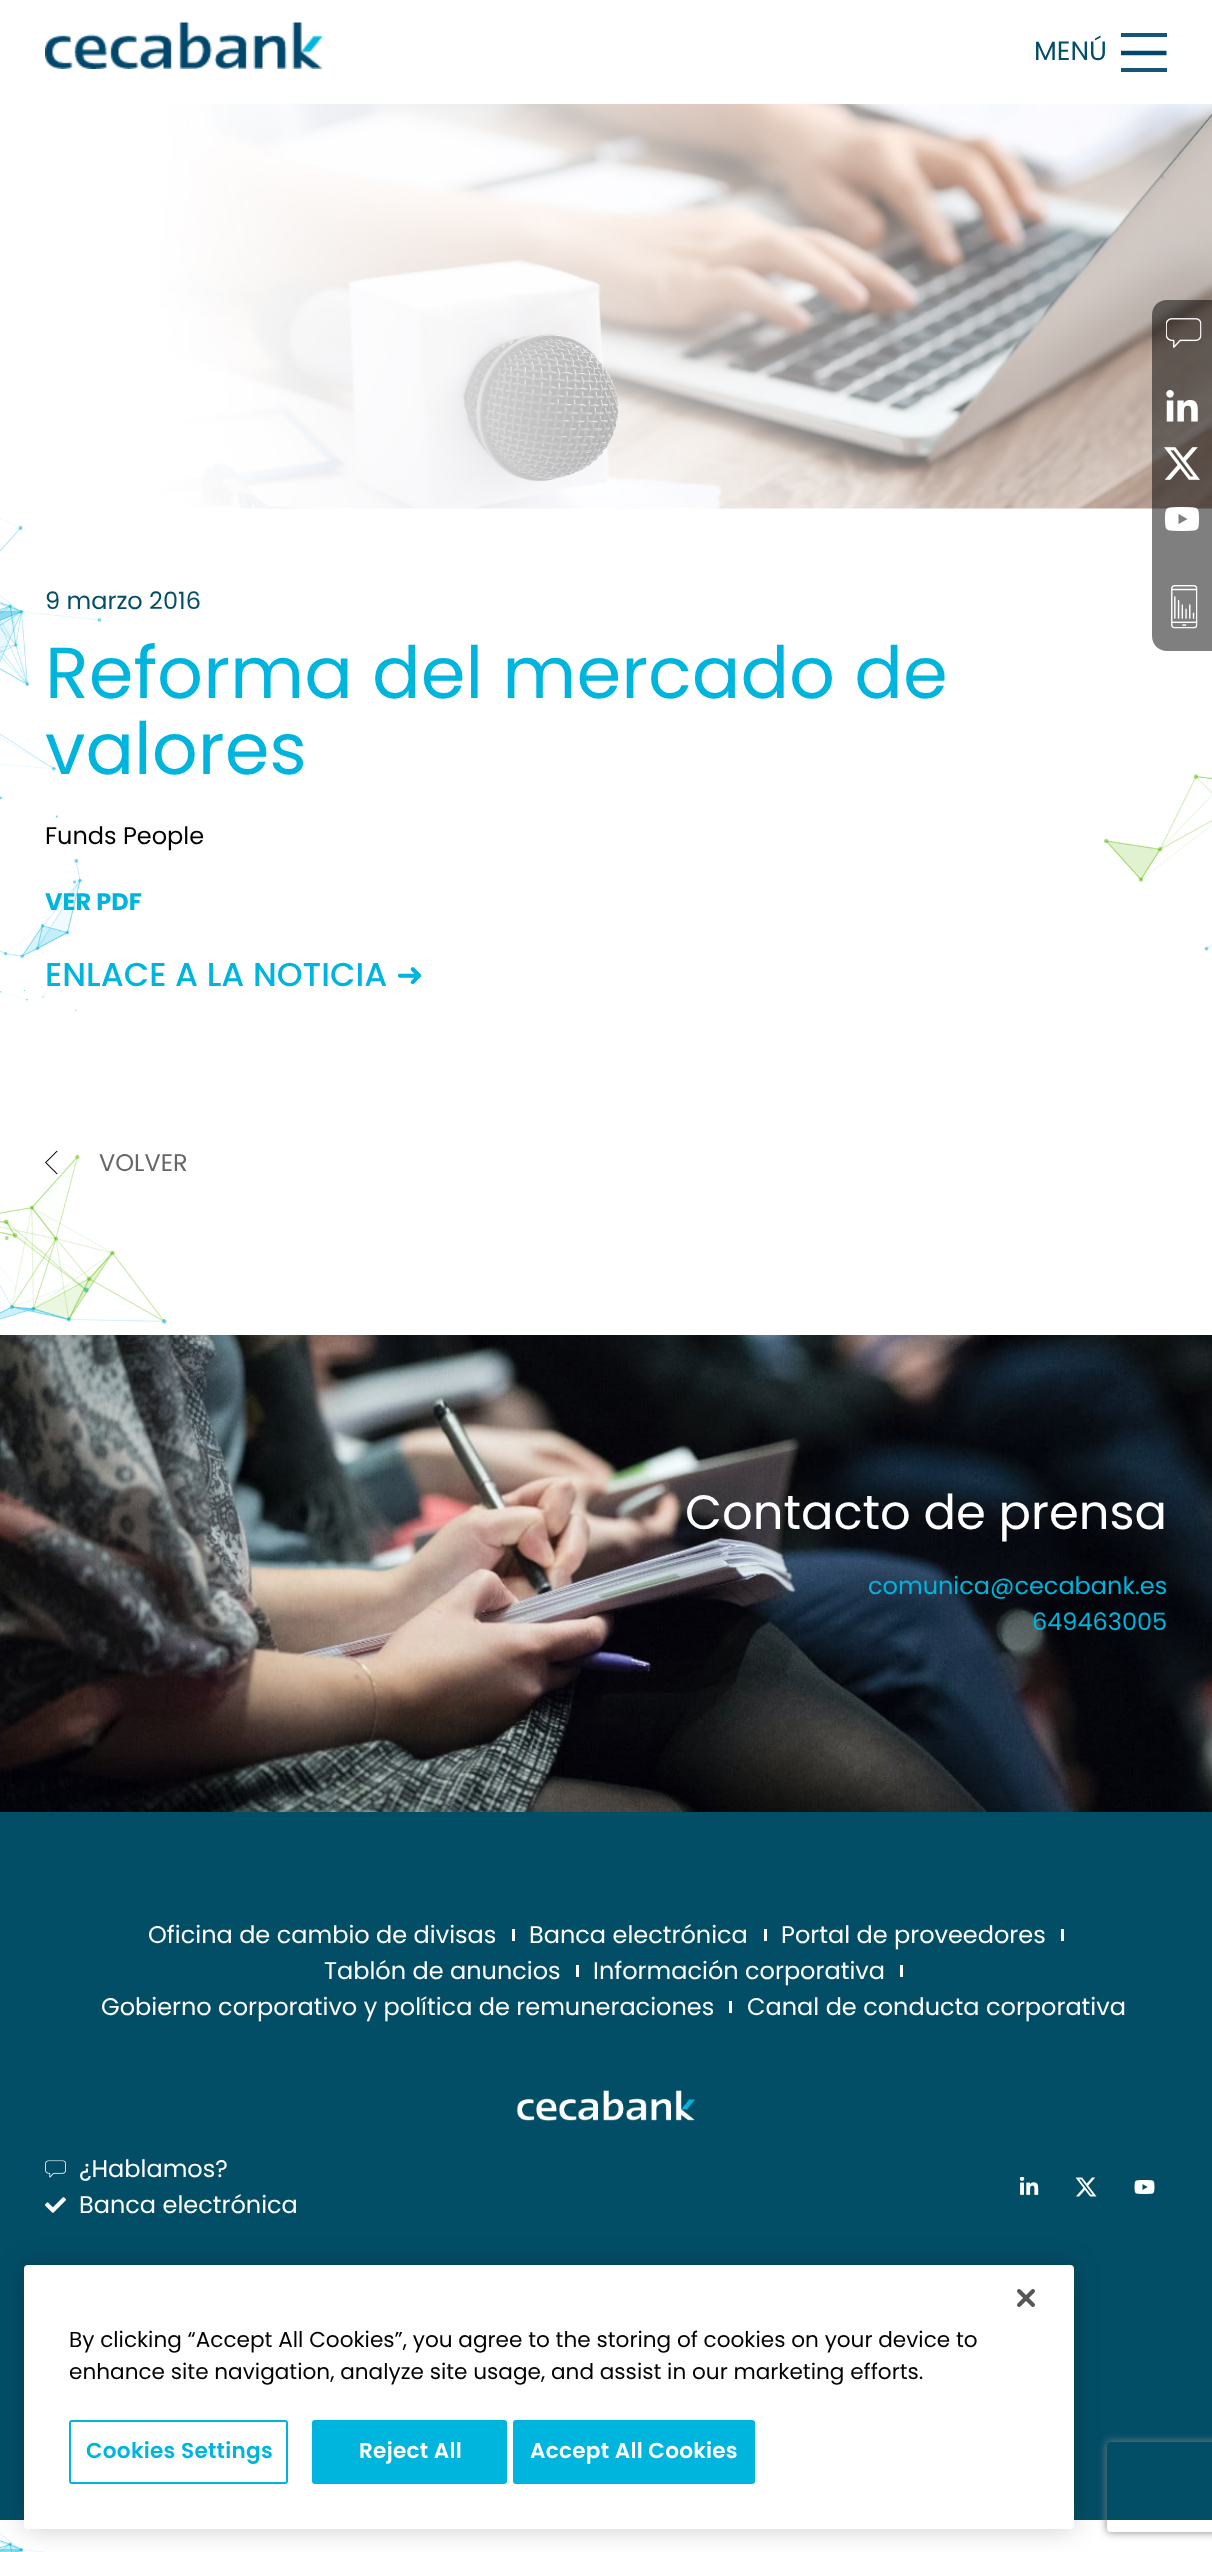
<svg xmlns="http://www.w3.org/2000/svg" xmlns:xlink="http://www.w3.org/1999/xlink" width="1212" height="2552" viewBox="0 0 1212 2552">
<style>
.cls-1{font:26.5px Poppins;fill:#034e67}
.cls-2{font:24px Poppins;fill:#034e67}
.cls-3{font:72px Poppins;fill:#00b5dd}
.cls-4{font:24px Poppins;fill:#000000}
.cls-5{font:bold 24px Poppins;fill:#00b5dd}
.cls-6{font:500 33px Poppins;fill:#00b5dd}
.cls-7{font:33px DejaVu Sans;fill:#00b5dd}
.cls-8{font:24px Poppins;fill:#666666}
.cls-9{font:48px Poppins;fill:#ffffff}
.cls-10{font:24px Poppins;fill:#00b5dd}
.cls-11{font:24px Poppins;fill:#ffffff}
.cls-12{font:21.6px Poppins;fill:#000000}
.cls-13{font:600 21.6px Poppins;letter-spacing:0.25px;fill:#00b5dd}
.cls-14{font:600 21.6px Poppins;letter-spacing:0.25px;fill:#ffffff}
</style>
<defs>
<clipPath id="clip1"><rect x="1121" y="33" width="46" height="39"/></clipPath>
<clipPath id="clip2"><path d="M45 1162.5L57 1150.5L69 1162.5L57 1174.5Z"/></clipPath>
<clipPath id="clip3"><path d="M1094 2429H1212V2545H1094ZM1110 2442H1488C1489.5 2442 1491 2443.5 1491 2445V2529C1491 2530.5 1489.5 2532 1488 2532H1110C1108.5 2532 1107 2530.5 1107 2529V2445C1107 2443.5 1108.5 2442 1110 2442Z" clip-rule="evenodd"/></clipPath>
</defs>
<rect width="100%" height="100%" fill="#ffffff"/>
<image xlink:href="image0.png" x="0" y="518" width="1212" height="2034"/>
<image xlink:href="image1.png" x="45" y="22" width="278" height="47"/>
<rect fill="#155677" x="1121" y="33" width="46" height="4"/>
<rect fill="#155677" x="1121" y="68" width="46" height="4"/>
<g clip-path="url(#clip1)">
<path fill="none" stroke="#01476b" stroke-width="4.6" d="M1120.5 53H1166.5"/>
</g>
<image xlink:href="image2.png" x="0" y="104" width="1212" height="405"/>
<g clip-path="url(#clip2)">
<path fill="none" stroke="#000000" stroke-width="1.9" d="M57 1174.5L45 1162.5L57 1150.5"/>
</g>
<image xlink:href="image3.png" x="0" y="1335" width="1212" height="477"/>
<path fill="#000000" fill-opacity="0.5" d="M1167 300H1212V651H1167C1158.5 651 1152 644.5 1152 636V315C1152 306.5 1158.5 300 1167 300Z"/>
<image xlink:href="image4.png" x="1166" y="318" width="36" height="30"/>
<image xlink:href="image5.png" x="1166" y="390" width="32" height="32"/>
<image xlink:href="image6.png" x="1164" y="447" width="36" height="33"/>
<image xlink:href="image7.png" x="1164" y="507" width="36" height="24"/>
<image xlink:href="image8.png" x="1171" y="585" width="27" height="44"/>
<rect fill="#034e67" x="0" y="1812" width="1212" height="708"/>
<rect fill="#ffffff" x="512" y="1929" width="3" height="12"/>
<rect fill="#ffffff" x="764" y="1929" width="3" height="12"/>
<rect fill="#ffffff" x="1061" y="1929" width="3" height="12"/>
<rect fill="#ffffff" x="576" y="1965" width="3" height="12"/>
<rect fill="#ffffff" x="900" y="1965" width="3" height="12"/>
<rect fill="#ffffff" x="729" y="2001" width="3" height="12"/>
<image xlink:href="image9.png" x="517" y="2090" width="178" height="31"/>
<image xlink:href="image10.png" x="45" y="2160" width="21" height="18"/>
<image xlink:href="image11.png" x="45" y="2197" width="21" height="16"/>
<image xlink:href="image12.png" x="1019" y="2177" width="20" height="18"/>
<image xlink:href="image13.png" x="1076" y="2177" width="21" height="20"/>
<image xlink:href="image14.png" x="1134" y="2180" width="21" height="14"/>
<rect fill="#000000" fill-opacity="0.2" filter="blur(13.5px)" x="24" y="2265" width="1050" height="264" rx="4"/>
<rect fill="#ffffff" x="24" y="2265" width="1050" height="264" rx="4"/>
<image xlink:href="image15.png" x="1017" y="2289" width="18" height="18"/>
<rect fill="none" stroke="#00b5dd" stroke-width="2" x="70" y="2421" width="217" height="62" rx="2"/>
<rect fill="#00b5dd" stroke="#00b5dd" stroke-width="2" x="313" y="2421" width="193" height="62" rx="2"/>
<rect fill="#00b5dd" stroke="#00b5dd" stroke-width="2" x="514" y="2421" width="240" height="62" rx="2"/>
<g clip-path="url(#clip3)">
<rect fill="#808080" filter="blur(4px)" x="1107" y="2442" width="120" height="90" rx="3"/>
</g>
<text class="cls-1" x="1034" y="60">MENÚ</text>
<text class="cls-2" x="45" y="609">9 marzo 2016</text>
<text class="cls-3"><tspan x="45" y="698">Reforma del mercado de</tspan><tspan x="45" y="774">valores</tspan></text>
<text class="cls-4" x="45" y="844">Funds People</text>
<text class="cls-5" x="45" y="910">VER PDF</text>
<text class="cls-6" x="45" y="986">ENLACE A LA NOTICIA</text>
<text class="cls-7" x="396" y="986">➜</text>
<text class="cls-8" x="99" y="1171">VOLVER</text>
<text class="cls-9" x="685" y="1529">Contacto de prensa</text>
<text class="cls-10" x="868" y="1594">comunica@cecabank.es</text>
<text class="cls-10" x="1032" y="1630">649463005</text>
<text class="cls-11" x="148" y="1943">Oficina de cambio de divisas</text>
<text class="cls-11" x="529" y="1943">Banca electrónica</text>
<text class="cls-11" x="781" y="1943">Portal de proveedores</text>
<text class="cls-11" x="324" y="1979">Tablón de anuncios</text>
<text class="cls-11" x="593" y="1979">Información corporativa</text>
<text class="cls-11" x="101" y="2015">Gobierno corporativo y política de remuneraciones</text>
<text class="cls-11" x="747" y="2015">Canal de conducta corporativa</text>
<text class="cls-11"><tspan x="79" y="2177">¿Hablamos?</tspan><tspan x="79" y="2213">Banca electrónica</tspan></text>
<text class="cls-12"><tspan x="69" y="2347">By clicking “Accept All Cookies”, you agree to the storing of cookies on your device to</tspan><tspan x="69" y="2379">enhance site navigation, analyze site usage, and assist in our marketing efforts.</tspan></text>
<text class="cls-13" x="86" y="2458">Cookies Settings</text>
<text class="cls-14" x="359" y="2458">Reject All</text>
<text class="cls-14" x="530" y="2458">Accept All Cookies</text>
</svg>
